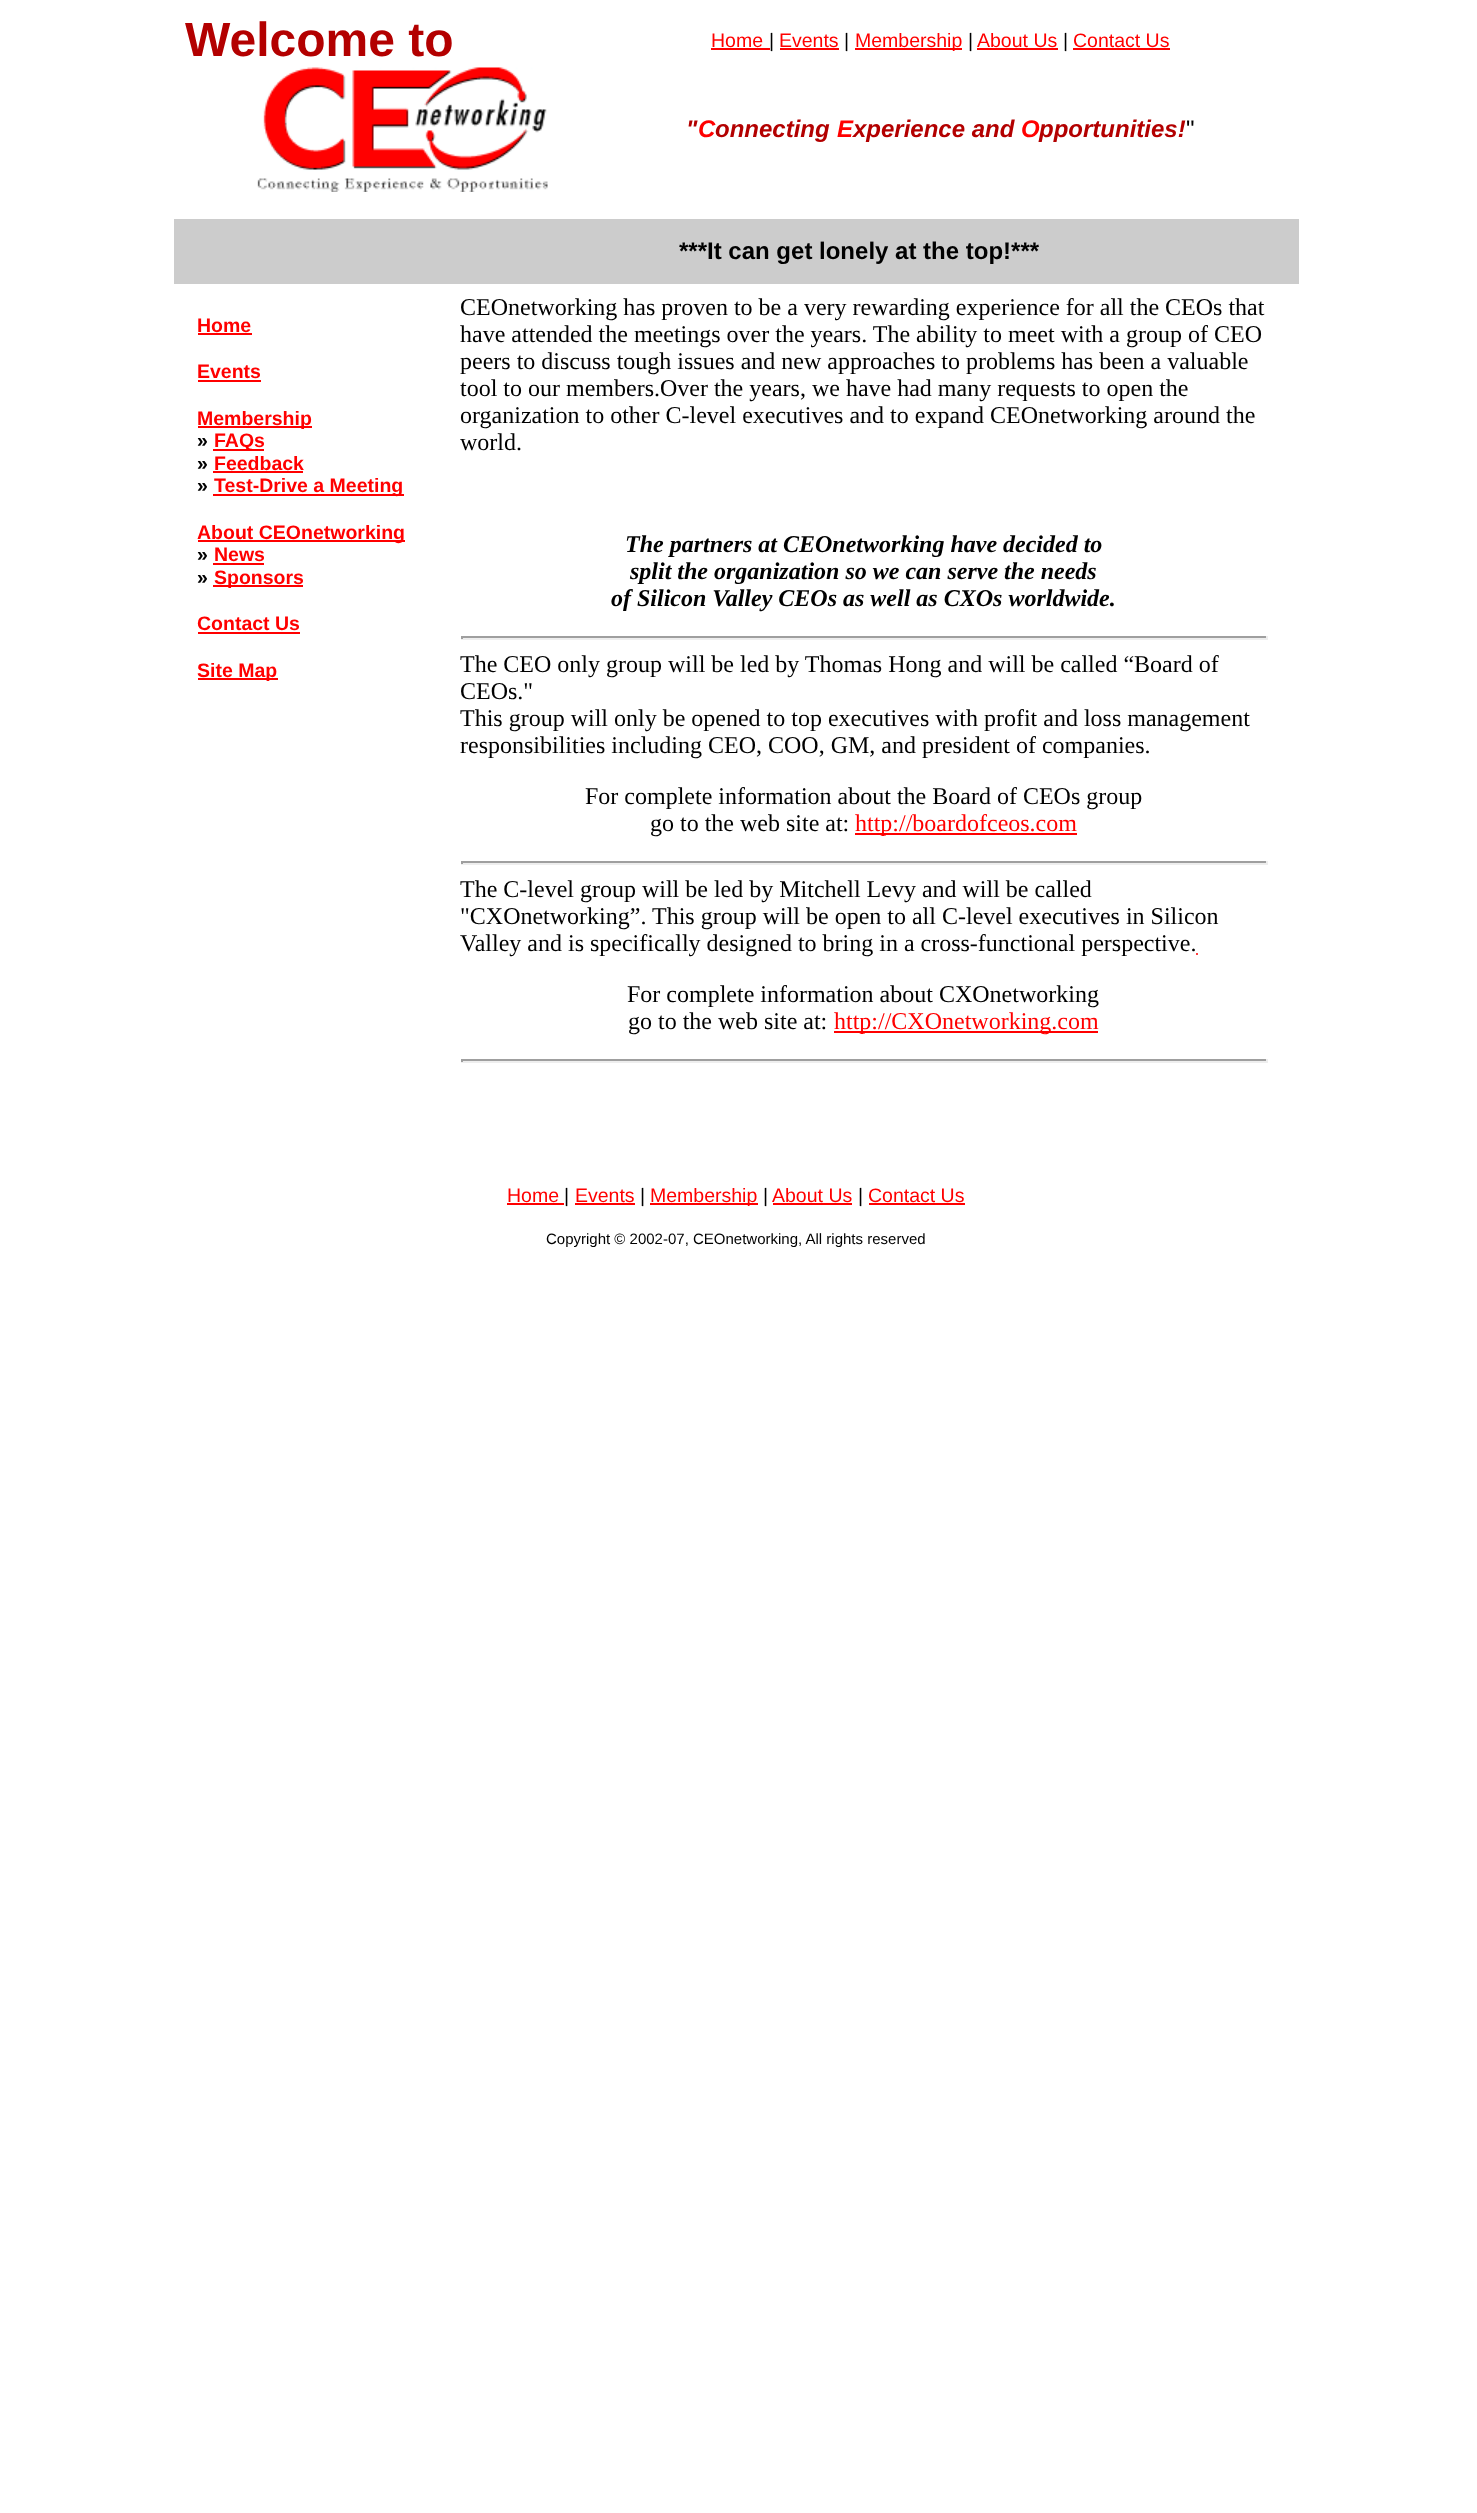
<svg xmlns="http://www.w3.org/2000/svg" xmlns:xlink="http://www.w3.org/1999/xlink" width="1477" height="2513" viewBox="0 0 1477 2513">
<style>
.cls-1{font:bold 48px Liberation Sans;fill:#b30000}
.cls-2{font:19.5px Liberation Sans;fill:#ff0000}
.cls-3{font:19.5px Liberation Sans;fill:#000000}
.cls-4{font:italic bold 24px Liberation Sans;fill:#b30000}
.cls-5{font:italic bold 24px Liberation Sans;fill:#ff0000}
.cls-6{font:24px Liberation Sans;fill:#000000}
.cls-7{font:bold 24px Liberation Sans;fill:#000000}
.cls-8{font:bold 19.5px Liberation Sans;fill:#ff0000}
.cls-9{font:bold 19.5px Liberation Sans;fill:#000000}
.cls-10{font:24px Liberation Serif;fill:#000000}
.cls-11{font:italic bold 24px Liberation Serif;fill:#000000}
.cls-12{font:24px Liberation Serif;fill:#ff0000}
.cls-13{font:15px Liberation Sans;fill:#000000}
</style>
<rect width="100%" height="100%" fill="#ffffff"/>
<rect fill="#ff0000" x="711" y="48" width="59" height="2"/>
<rect fill="#ff0000" x="780" y="48" width="59" height="2"/>
<rect fill="#ff0000" x="855" y="48" width="107" height="2"/>
<rect fill="#ff0000" x="977" y="48" width="81" height="2"/>
<rect fill="#ff0000" x="1073" y="48" width="97" height="2"/>
<image xlink:href="image0.png" x="257" y="67" width="291" height="125"/>
<rect fill="#cccccc" x="174" y="219" width="1125" height="65"/>
<rect fill="#ff0000" x="198" y="333" width="54" height="2"/>
<rect fill="#ff0000" x="198" y="380" width="63" height="2"/>
<rect fill="#ff0000" x="198" y="426" width="114" height="2"/>
<rect fill="#ff0000" x="213" y="449" width="51" height="2"/>
<rect fill="#ff0000" x="213" y="471" width="90" height="2"/>
<rect fill="#ff0000" x="213" y="494" width="191" height="2"/>
<rect fill="#ff0000" x="198" y="540" width="207" height="2"/>
<rect fill="#ff0000" x="213" y="563" width="51" height="2"/>
<rect fill="#ff0000" x="213" y="585" width="90" height="2"/>
<rect fill="#ff0000" x="198" y="632" width="102" height="2"/>
<rect fill="#ff0000" x="198" y="678" width="80" height="2"/>
<rect fill="#9f9f9f" x="461" y="636" width="807" height="2"/>
<rect fill="#eeeeee" x="1266" y="636" width="2" height="3"/>
<rect fill="#eeeeee" x="461" y="638" width="807" height="2"/>
<rect fill="#9f9f9f" x="461" y="636" width="2" height="3"/>
<rect fill="#ff0000" x="855" y="833" width="222" height="2"/>
<rect fill="#9f9f9f" x="461" y="861" width="807" height="2"/>
<rect fill="#eeeeee" x="1266" y="861" width="2" height="3"/>
<rect fill="#eeeeee" x="461" y="863" width="807" height="2"/>
<rect fill="#9f9f9f" x="461" y="861" width="2" height="3"/>
<circle fill="#ff0000" cx="1197" cy="954" r="1"/>
<rect fill="#ff0000" x="834" y="1031" width="264" height="2"/>
<rect fill="#9f9f9f" x="461" y="1059" width="807" height="2"/>
<rect fill="#eeeeee" x="1266" y="1059" width="2" height="3"/>
<rect fill="#eeeeee" x="461" y="1061" width="807" height="2"/>
<rect fill="#9f9f9f" x="461" y="1059" width="2" height="3"/>
<rect fill="#ff0000" x="507" y="1203" width="57" height="2"/>
<rect fill="#ff0000" x="575" y="1203" width="60" height="2"/>
<rect fill="#ff0000" x="650" y="1203" width="108" height="2"/>
<rect fill="#ff0000" x="773" y="1203" width="79" height="2"/>
<rect fill="#ff0000" x="869" y="1203" width="96" height="2"/>
<text class="cls-1" x="185" y="56">Welcome to</text>
<text class="cls-2" x="711" y="47">Home</text>
<text class="cls-3" x="769" y="47">|</text>
<text class="cls-2" x="779" y="47">Events</text>
<text class="cls-3" x="844" y="47">|</text>
<text class="cls-2" x="855" y="47">Membership</text>
<text class="cls-3" x="968" y="47">|</text>
<text class="cls-2" x="977" y="47">About Us</text>
<text class="cls-3" x="1063" y="47">|</text>
<text class="cls-2" x="1073" y="47">Contact Us</text>
<text class="cls-4" x="686" y="137">"</text>
<text class="cls-5" x="698" y="137">C</text>
<text class="cls-4" x="715" y="137">onnecting</text>
<text class="cls-5" x="837" y="137">E</text>
<text class="cls-4" x="853" y="137">xperience and</text>
<text class="cls-5" x="1021" y="137">O</text>
<text class="cls-4" x="1039" y="137">pportunities!</text>
<text class="cls-6" x="1186" y="137">"</text>
<text class="cls-7" x="679" y="259">***It can get lonely at the top!***</text>
<text class="cls-8" x="197" y="332">Home</text>
<text class="cls-8" x="197" y="378">Events</text>
<text class="cls-8" x="197" y="425">Membership</text>
<text class="cls-9" x="197" y="447">»</text>
<text class="cls-8" x="214" y="447">FAQs</text>
<text class="cls-9" x="197" y="470">»</text>
<text class="cls-8" x="214" y="470">Feedback</text>
<text class="cls-9" x="197" y="492">»</text>
<text class="cls-8" x="214" y="492">Test-Drive a Meeting</text>
<text class="cls-8" x="197" y="539">About CEOnetworking</text>
<text class="cls-9" x="197" y="561">»</text>
<text class="cls-8" x="214" y="561">News</text>
<text class="cls-9" x="197" y="584">»</text>
<text class="cls-8" x="214" y="584">Sponsors</text>
<text class="cls-8" x="197" y="630">Contact Us</text>
<text class="cls-8" x="197" y="677">Site Map</text>
<text class="cls-10"><tspan x="460" y="315">CEOnetworking has proven to be a very rewarding experience for all the CEOs that</tspan><tspan x="460" y="342">have attended the meetings over the years. The ability to meet with a group of CEO</tspan><tspan x="460" y="369">peers to discuss tough issues and new approaches to problems has been a valuable</tspan><tspan x="460" y="396">tool to our members.Over the years, we have had many requests to open the</tspan><tspan x="460" y="423">organization to other C-level executives and to expand CEOnetworking around the</tspan><tspan x="460" y="450">world.</tspan></text>
<text class="cls-11" x="625" y="552">The partners at CEOnetworking have decided to</text>
<text class="cls-11" x="630" y="579">split the organization so we can serve the needs</text>
<text class="cls-11" x="611" y="606">of Silicon Valley CEOs as well as CXOs worldwide.</text>
<text class="cls-10"><tspan x="460" y="672">The CEO only group will be led by Thomas Hong and will be called “Board of</tspan><tspan x="460" y="699">CEOs."</tspan><tspan x="460" y="726">This group will only be opened to top executives with profit and loss management</tspan><tspan x="460" y="753">responsibilities including CEO, COO, GM, and president of companies.</tspan></text>
<text class="cls-10" x="585" y="804">For complete information about the Board of CEOs group</text>
<text class="cls-10" x="650" y="831">go to the web site at:</text>
<text class="cls-12" x="855" y="831">http://boardofceos.com</text>
<text class="cls-10"><tspan x="460" y="897">The C-level group will be led by Mitchell Levy and will be called</tspan><tspan x="460" y="924">"CXOnetworking”.</tspan></text>
<text class="cls-10" x="652" y="924">This group will be open to all C-level executives in Silicon</text>
<text class="cls-10" x="460" y="951">Valley and is specifically designed to bring in a cross-functional perspective.</text>
<text class="cls-10" x="627" y="1002">For complete information about CXOnetworking</text>
<text class="cls-10" x="628" y="1029">go to the web site at:</text>
<text class="cls-12" x="834" y="1029">http://CXOnetworking.com</text>
<text class="cls-2" x="507" y="1202">Home</text>
<text class="cls-3" x="564" y="1202">|</text>
<text class="cls-2" x="575" y="1202">Events</text>
<text class="cls-3" x="640" y="1202">|</text>
<text class="cls-2" x="650" y="1202">Membership</text>
<text class="cls-3" x="763" y="1202">|</text>
<text class="cls-2" x="772" y="1202">About Us</text>
<text class="cls-3" x="858" y="1202">|</text>
<text class="cls-2" x="868" y="1202">Contact Us</text>
<text class="cls-13" x="546" y="1244">Copyright © 2002-07, CEOnetworking, All rights reserved</text>
</svg>
